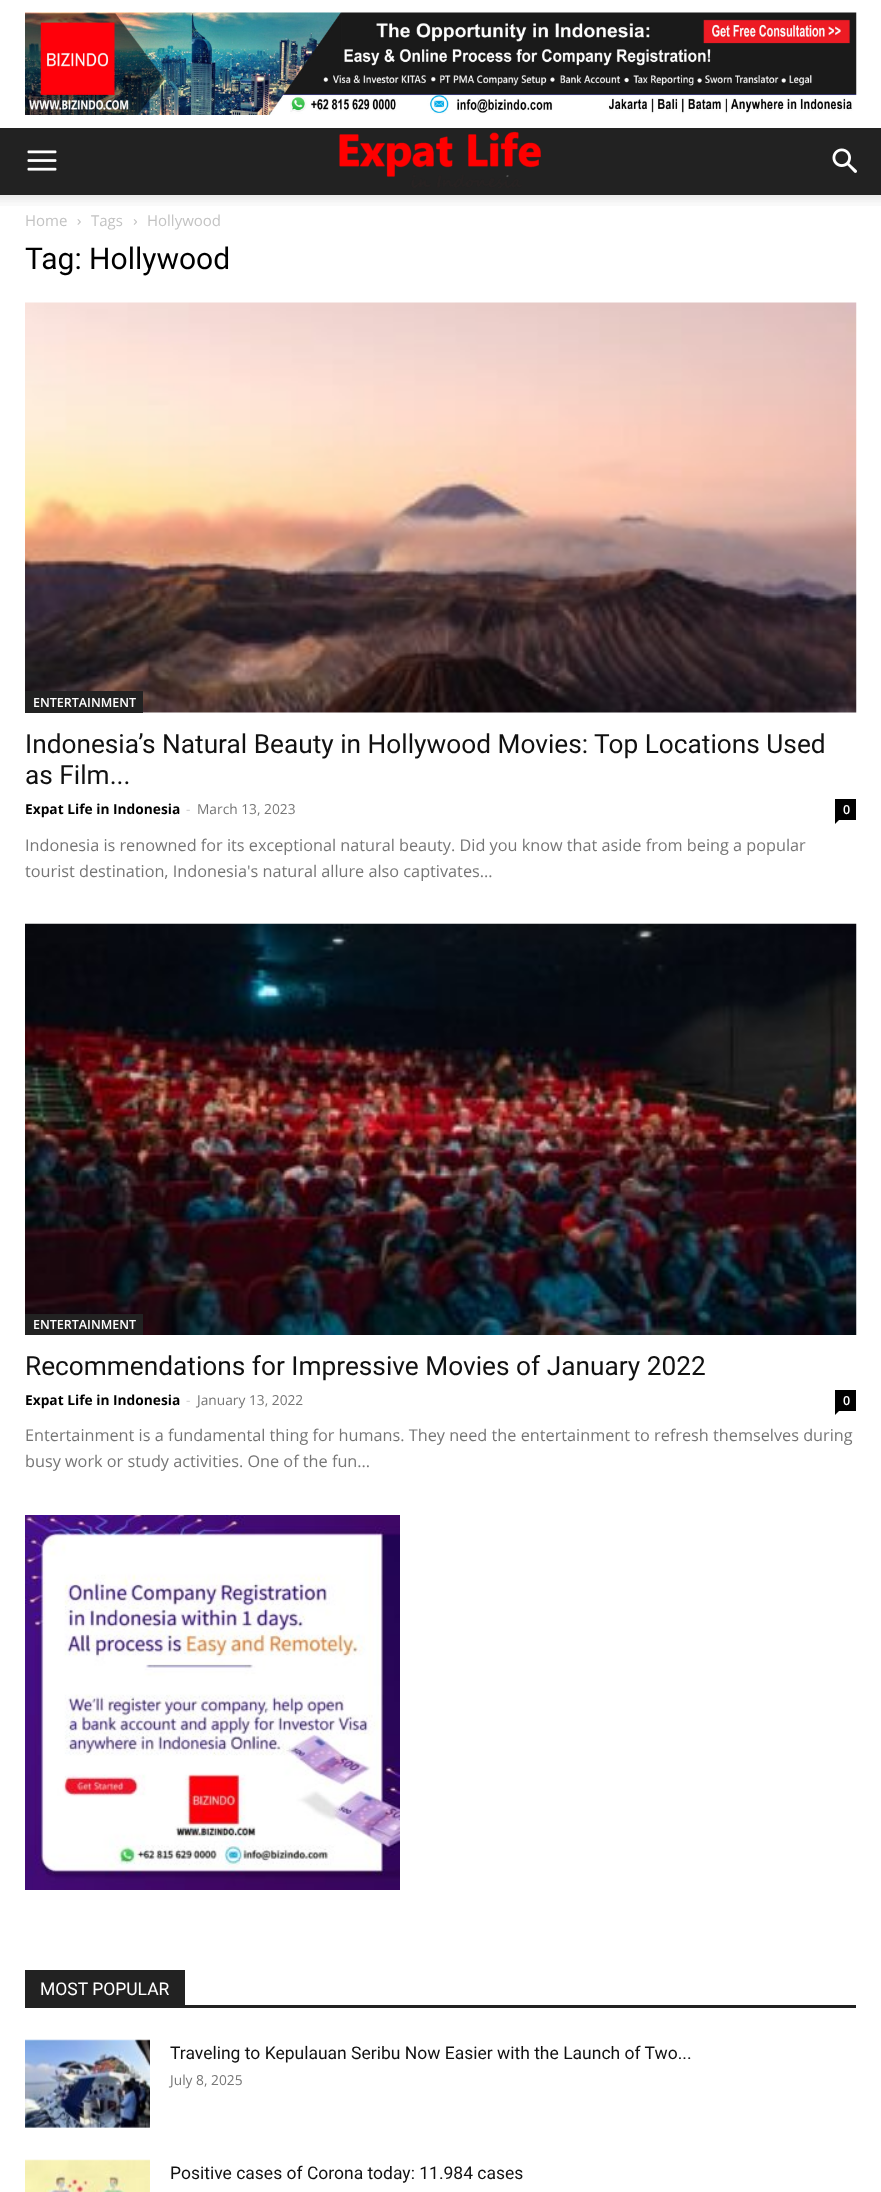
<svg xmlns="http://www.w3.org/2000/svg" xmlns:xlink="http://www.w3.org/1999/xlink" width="881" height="2192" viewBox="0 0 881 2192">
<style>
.cls-1{font:15px Open Sans;fill:#c3c3c3}
.cls-2{font:30px Roboto;fill:#000000}
.cls-3{font:600 12.5px Open Sans;fill:#ffffff}
.cls-4{font:26.25px Roboto;fill:#111111}
.cls-5{font:bold 13.75px Open Sans;fill:#000000}
.cls-6{font:13.75px Open Sans;fill:#cccccc}
.cls-7{font:13.75px Open Sans;fill:#767676}
.cls-8{font:16.25px Open Sans;fill:#767676}
.cls-9{font:17.5px Roboto;fill:#ffffff}
.cls-10{font:17.5px Roboto;fill:#111111}
</style>
<rect width="100%" height="100%" fill="#ffffff"/>
<image xlink:href="image0.png" x="25" y="12" width="832" height="103"/>
<rect fill="#222222" x="0" y="128" width="881" height="67"/>
<image xlink:href="image1.png" x="27" y="150" width="30" height="21"/>
<image xlink:href="image2.png" x="339" y="131" width="202" height="57"/>
<image xlink:href="image3.png" x="832" y="148" width="25" height="25"/>
<image xlink:href="image4.png" x="0" y="195" width="881" height="11"/>
<image xlink:href="image5.png" x="77" y="219" width="4" height="6"/>
<image xlink:href="image6.png" x="133" y="219" width="4" height="6"/>
<image xlink:href="image7.png" x="25" y="302" width="832" height="411"/>
<rect fill="#222222" x="25" y="691" width="118" height="22"/>
<rect fill="#000000" x="835" y="799" width="21" height="21"/>
<path fill="#000000" d="M835 820H839L835 824Z"/>
<image xlink:href="image8.png" x="25" y="923" width="832" height="412"/>
<rect fill="#222222" x="25" y="1314" width="118" height="21"/>
<rect fill="#000000" x="835" y="1390" width="21" height="21"/>
<path fill="#000000" d="M835 1411H839L835 1415Z"/>
<image xlink:href="image9.png" x="25" y="1515" width="375" height="375"/>
<rect fill="#222222" x="25" y="2005" width="831" height="3"/>
<rect fill="#222222" x="25" y="1970" width="160" height="35"/>
<image xlink:href="image10.png" x="25" y="2039" width="125" height="89"/>
<image xlink:href="image11.png" x="25" y="2159" width="125" height="33"/>
<text class="cls-1" x="25" y="226">Home</text>
<text class="cls-1" x="91" y="226">Tags</text>
<text class="cls-1" x="147" y="226">Hollywood</text>
<text class="cls-2" x="25" y="269">Tag: Hollywood</text>
<text class="cls-3" x="33" y="707">ENTERTAINMENT</text>
<text class="cls-4"><tspan x="25" y="753">Indonesia’s Natural Beauty in Hollywood Movies: Top Locations Used</tspan><tspan x="25" y="784">as Film...</tspan></text>
<text class="cls-5" x="25" y="814">Expat Life in Indonesia</text>
<text class="cls-6" x="186" y="814">-</text>
<text class="cls-7" x="197" y="814">March 13, 2023</text>
<text class="cls-3" x="843" y="814">0</text>
<text class="cls-8"><tspan x="25" y="851">Indonesia is renowned for its exceptional natural beauty. Did you know that aside from being a popular</tspan><tspan x="25" y="877">tourist destination, Indonesia's natural allure also captivates...</tspan></text>
<text class="cls-3" x="33" y="1329">ENTERTAINMENT</text>
<text class="cls-4" x="25" y="1375">Recommendations for Impressive Movies of January 2022</text>
<text class="cls-5" x="25" y="1405">Expat Life in Indonesia</text>
<text class="cls-6" x="186" y="1405">-</text>
<text class="cls-7" x="197" y="1405">January 13, 2022</text>
<text class="cls-3" x="843" y="1405">0</text>
<text class="cls-8"><tspan x="25" y="1441">Entertainment is a fundamental thing for humans. They need the entertainment to refresh themselves during</tspan><tspan x="25" y="1467">busy work or study activities. One of the fun...</tspan></text>
<text class="cls-9" x="40" y="1995">MOST POPULAR</text>
<text class="cls-10" x="170" y="2059">Traveling to Kepulauan Seribu Now Easier with the Launch of Two...</text>
<text class="cls-7" x="170" y="2085">July 8, 2025</text>
<text class="cls-10" x="170" y="2179">Positive cases of Corona today: 11.984 cases</text>
</svg>
